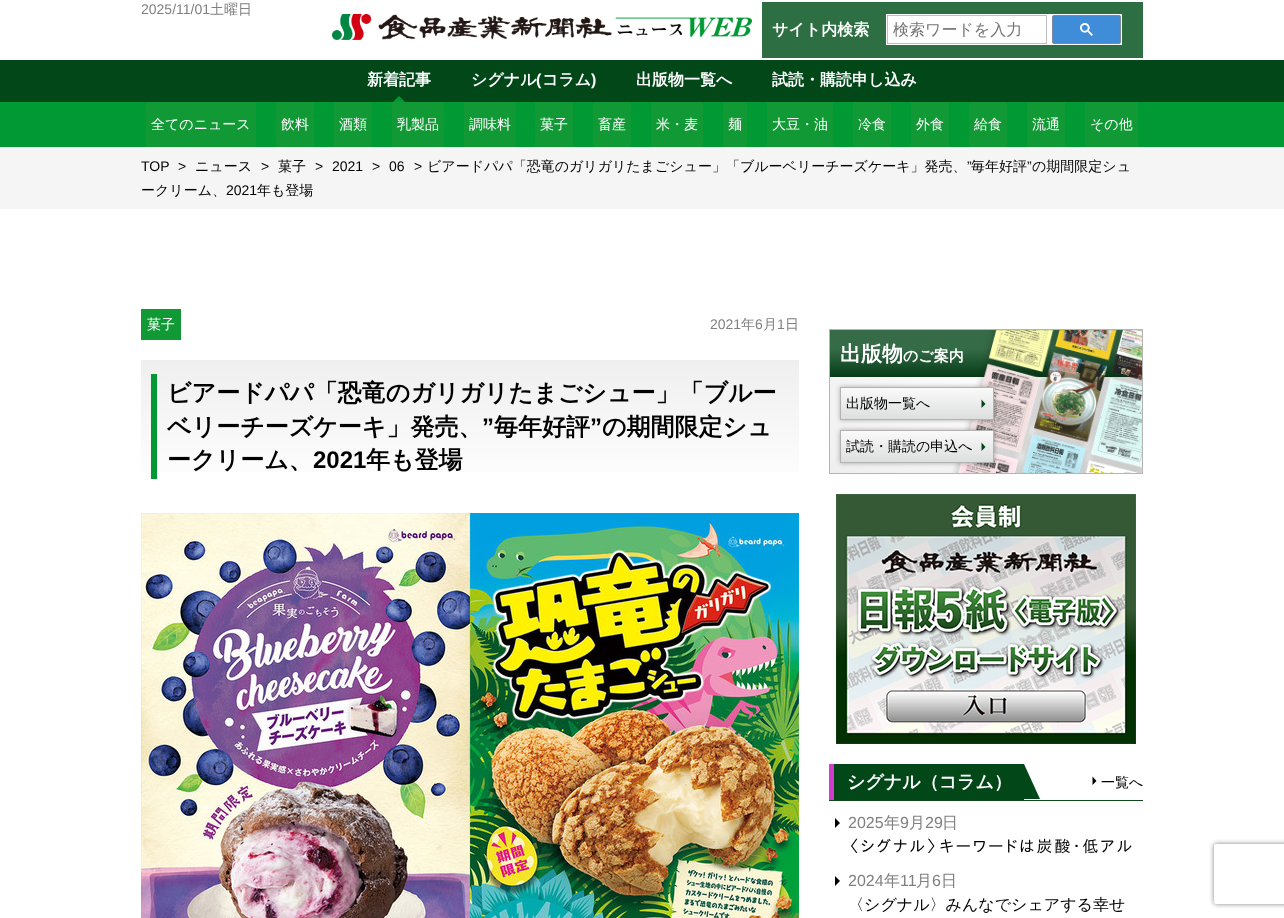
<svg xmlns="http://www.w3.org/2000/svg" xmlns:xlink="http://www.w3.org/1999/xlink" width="1284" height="918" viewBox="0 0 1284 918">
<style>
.cls-1{font:14px Liberation Sans;fill:#808080}
.cls-2{font:500 14px WenQuanYi Zen Hei;fill:#808080}
.cls-3{font:bold 16px WenQuanYi Zen Hei;fill:#ffffff}
.cls-4{font:500 16px WenQuanYi Zen Hei;fill:#757575}
.cls-5{font:500 14px WenQuanYi Zen Hei;fill:#ffffff}
.cls-6{font:bold 16px Liberation Sans;fill:#ffffff}
.cls-7{font:14px Liberation Sans;fill:#000000}
.cls-8{font:500 14px WenQuanYi Zen Hei;fill:#000000}
.cls-9{font:bold 24px WenQuanYi Zen Hei;fill:#000000}
.cls-10{font:bold 24px Liberation Sans;fill:#000000}
.cls-11{font:bold 21px WenQuanYi Zen Hei;fill:#ffffff}
.cls-12{font:bold 15px WenQuanYi Zen Hei;fill:#ffffff}
.cls-13{font:bold 18px WenQuanYi Zen Hei;fill:#ffffff}
.cls-14{font:16px Liberation Sans;fill:#808080}
.cls-15{font:500 16px WenQuanYi Zen Hei;fill:#808080}
.cls-16{font:16px IPAPGothic;letter-spacing:2px;fill:#000000}
.cls-17{font:500 16px WenQuanYi Zen Hei;fill:#000000}
</style>
<defs>
<linearGradient id="g1" gradientUnits="userSpaceOnUse" x1="470" y1="360" x2="470" y2="493"><stop offset="0" stop-color="#efefef"/><stop offset="1" stop-color="#ffffff"/></linearGradient>
<radialGradient id="g2" gradientUnits="userSpaceOnUse" cx="0" cy="0" r="1" gradientTransform="matrix(221 0 0 101 986 402)"><stop offset="0" stop-color="#ffffff"/><stop offset="1" stop-color="#eeeeee"/></radialGradient>
<linearGradient id="g3" gradientUnits="userSpaceOnUse" x1="986" y1="330" x2="986" y2="377"><stop offset="0.4" stop-color="#366b47"/><stop offset="1" stop-color="#063b17"/></linearGradient>
<clipPath id="clip1"><path d="M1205 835H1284V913H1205ZM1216 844H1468C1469 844 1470 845 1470 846V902C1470 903 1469 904 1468 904H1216C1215 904 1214 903 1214 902V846C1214 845 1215 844 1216 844Z" clip-rule="evenodd"/></clipPath>
<linearGradient id="g4" gradientUnits="userSpaceOnUse" x1="917" y1="388" x2="917" y2="419"><stop offset="0" stop-color="#fafafa"/><stop offset="1" stop-color="#dddede"/></linearGradient>
<linearGradient id="g5" gradientUnits="userSpaceOnUse" x1="917" y1="431" x2="917" y2="462"><stop offset="0" stop-color="#fafafa"/><stop offset="1" stop-color="#dddede"/></linearGradient>
</defs>
<rect width="100%" height="100%" fill="#ffffff"/>
<image xlink:href="image0.png" x="332" y="14" width="420" height="26"/>
<rect fill="#2d6e42" x="762" y="2" width="381" height="56"/>
<rect fill="#ffffff" x="886" y="14" width="236" height="31"/>
<rect fill="none" stroke="#bfbfbf" x="887.5" y="15.5" width="159" height="28"/>
<rect fill="#3f8cd8" stroke="#80869b" x="1052.5" y="15.5" width="68" height="28" rx="1.5"/>
<image xlink:href="image1.png" x="1080" y="23" width="13" height="13"/>
<rect fill="#014718" x="0" y="60" width="1284" height="42"/>
<path fill="#019934" d="M405 102H393L399 96Z"/>
<rect fill="#019934" x="0" y="102" width="1284" height="45"/>
<rect fill="#109934" x="146" y="102" width="110" height="45"/>
<rect fill="#109934" x="276" y="102" width="38" height="45"/>
<rect fill="#109934" x="334" y="102" width="38" height="45"/>
<rect fill="#109934" x="392" y="102" width="52" height="45"/>
<rect fill="#109934" x="464" y="102" width="52" height="45"/>
<rect fill="#109934" x="535" y="102" width="38" height="45"/>
<rect fill="#109934" x="593" y="102" width="38" height="45"/>
<rect fill="#109934" x="651" y="102" width="52" height="45"/>
<rect fill="#109934" x="723" y="102" width="24" height="45"/>
<rect fill="#109934" x="767" y="102" width="66" height="45"/>
<rect fill="#109934" x="853" y="102" width="38" height="45"/>
<rect fill="#109934" x="911" y="102" width="38" height="45"/>
<rect fill="#109934" x="969" y="102" width="38" height="45"/>
<rect fill="#109934" x="1027" y="102" width="38" height="45"/>
<rect fill="#109934" x="1085" y="102" width="53" height="45"/>
<rect fill="#f5f5f5" x="0" y="147" width="1284" height="62"/>
<rect fill="#109934" x="141" y="309" width="40" height="31"/>
<rect fill="url(#g1)" x="141" y="360" width="658" height="112"/>
<rect fill="#019934" x="151" y="374" width="6" height="105"/>
<image xlink:href="image2.png" x="141" y="513" width="658" height="405"/>
<rect fill="url(#g2)" x="830" y="377" width="312" height="96"/>
<rect fill="none" stroke="#b5b5b5" x="829.5" y="329.5" width="313" height="144"/>
<rect fill="url(#g3)" x="830" y="330" width="312" height="47"/>
<image xlink:href="image4.png" x="836" y="494" width="300" height="250"/>
<rect fill="#104718" x="829" y="800" width="314" height="1"/>
<rect fill="#014718" x="834" y="764" width="190" height="36"/>
<rect fill="#d03fcb" x="829" y="764" width="5" height="36"/>
<path fill="#014718" d="M1024 799V764L1040 799Z"/>
<path fill="#000000" d="M1092.5 785V776.5L1096.5 781Z"/>
<path fill="#000000" d="M835 828V818L840 823Z"/>
<path fill="#000000" d="M835 886V876L840 881Z"/>
<g clip-path="url(#clip1)">
<rect fill="#808080" filter="blur(2.5px)" x="1214" y="844" width="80" height="60" rx="2"/>
</g>
<text class="cls-1" x="141" y="14">2025/11/01</text>
<text class="cls-2" x="210" y="14">土曜日</text>
<text class="cls-3" x="772" y="35">サイト内検索</text>
<text class="cls-4" x="893" y="35">検索ワードを入力</text>
<text class="cls-3" x="367" y="85">新着記事</text>
<text class="cls-5" x="151" y="129">全てのニュース</text>
<text class="cls-5" x="281" y="129">飲料</text>
<text class="cls-5" x="339" y="129">酒類</text>
<text class="cls-5" x="397" y="129">乳製品</text>
<text class="cls-5" x="469" y="129">調味料</text>
<text class="cls-5" x="540" y="129">菓子</text>
<text class="cls-5" x="598" y="129">畜産</text>
<text class="cls-5" x="656" y="129">米・麦</text>
<text class="cls-5" x="728" y="129">麺</text>
<text class="cls-5" x="772" y="129">大豆・油</text>
<text class="cls-5" x="858" y="129">冷食</text>
<text class="cls-5" x="916" y="129">外食</text>
<text class="cls-5" x="974" y="129">給食</text>
<text class="cls-5" x="1032" y="129">流通</text>
<text class="cls-5" x="1090" y="129">その他</text>
<text class="cls-3" x="471" y="85">シグナル</text>
<text class="cls-6" x="536" y="85">(</text>
<text class="cls-3" x="542" y="85">コラム</text>
<text class="cls-6" x="591" y="85">)</text>
<text class="cls-3" x="636" y="85">出版物一覧へ</text>
<text class="cls-3" x="772" y="85">試読・購読申し込み</text>
<text class="cls-7" x="141" y="171">TOP</text>
<text class="cls-7" x="178" y="171">&gt;</text>
<text class="cls-8" x="195" y="171">ニュース</text>
<text class="cls-7" x="261" y="171">&gt;</text>
<text class="cls-8" x="278" y="171">菓子</text>
<text class="cls-7" x="315" y="171">&gt;</text>
<text class="cls-7" x="332" y="171">2021</text>
<text class="cls-7" x="372" y="171">&gt;</text>
<text class="cls-7" x="389" y="171">06</text>
<text class="cls-7" x="414" y="171">&gt;</text>
<text class="cls-8" x="427" y="171">ビアードパパ「恐竜のガリガリたまごシュー」「ブルーベリーチーズケーキ」発売、</text>
<text class="cls-7" x="967" y="171">”</text>
<text class="cls-8" x="971" y="171">毎年好評</text>
<text class="cls-7" x="1027" y="171">”</text>
<text class="cls-8" x="1032" y="171">の期間限定シュ</text>
<text class="cls-8" x="141" y="195">ークリーム、</text>
<text class="cls-7" x="226" y="195">2021</text>
<text class="cls-8" x="257" y="195">年も登場</text>
<text class="cls-5" x="147" y="329">菓子</text>
<text class="cls-1" x="710" y="329">2021</text>
<text class="cls-2" x="741" y="329">年</text>
<text class="cls-1" x="755" y="329">6</text>
<text class="cls-2" x="763" y="329">月</text>
<text class="cls-1" x="777" y="329">1</text>
<text class="cls-2" x="785" y="329">日</text>
<text class="cls-9"><tspan x="167" y="401">ビアードパパ「恐竜のガリガリたまごシュー」「ブルー</tspan><tspan x="167" y="435">ベリーチーズケーキ」発売、</tspan></text>
<text class="cls-10" x="482" y="435">”</text>
<text class="cls-9" x="494" y="435">毎年好評</text>
<text class="cls-10" x="590" y="435">”</text>
<text class="cls-9" x="602" y="435">の期間限定シュ</text>
<text class="cls-9" x="167" y="468">ークリーム、</text>
<text class="cls-10" x="313" y="468">2021</text>
<text class="cls-9" x="366" y="468">年も登場</text>
<text class="cls-11" x="840" y="361">出版物</text>
<text class="cls-12" x="903" y="361">のご案内</text>
<image xlink:href="image3.png" x="952" y="330" width="190" height="143"/>
<rect fill="#000000" fill-opacity="0.3" filter="blur(2.5px)" x="840" y="387" width="154" height="33"/>
<rect fill="url(#g4)" x="841" y="388" width="152" height="31"/>
<rect fill="none" stroke="#b2b2b2" x="840.5" y="387.5" width="153" height="32"/>
<text class="cls-8" x="846" y="408">出版物一覧へ</text>
<path fill="#014718" d="M981.5 408V399.5L985.5 404Z"/>
<rect fill="#000000" fill-opacity="0.3" filter="blur(2.5px)" x="840" y="430" width="154" height="33"/>
<rect fill="url(#g5)" x="841" y="431" width="152" height="31"/>
<rect fill="none" stroke="#b2b2b2" x="840.5" y="430.5" width="153" height="32"/>
<text class="cls-8" x="846" y="451">試読・購読の申込へ</text>
<path fill="#014718" d="M981.5 451V442.5L985.5 447Z"/>
<text class="cls-13" x="847" y="788">シグナル（コラム）</text>
<text class="cls-8" x="1101" y="787">一覧へ</text>
<text class="cls-14" x="848" y="828">2025</text>
<text class="cls-15" x="884" y="828">年</text>
<text class="cls-14" x="900" y="828">9</text>
<text class="cls-15" x="909" y="828">月</text>
<text class="cls-14" x="925" y="828">29</text>
<text class="cls-15" x="942" y="828">日</text>
<text class="cls-16" x="848" y="852">〈シグナル〉キーワードは炭酸･低アル</text>
<text class="cls-14" x="848" y="886">2024</text>
<text class="cls-15" x="884" y="886">年</text>
<text class="cls-14" x="900" y="886">11</text>
<text class="cls-15" x="916" y="886">月</text>
<text class="cls-14" x="932" y="886">6</text>
<text class="cls-15" x="941" y="886">日</text>
<text class="cls-17" x="848" y="910">〈シグナル〉みんなでシェアする幸せ</text>
</svg>
